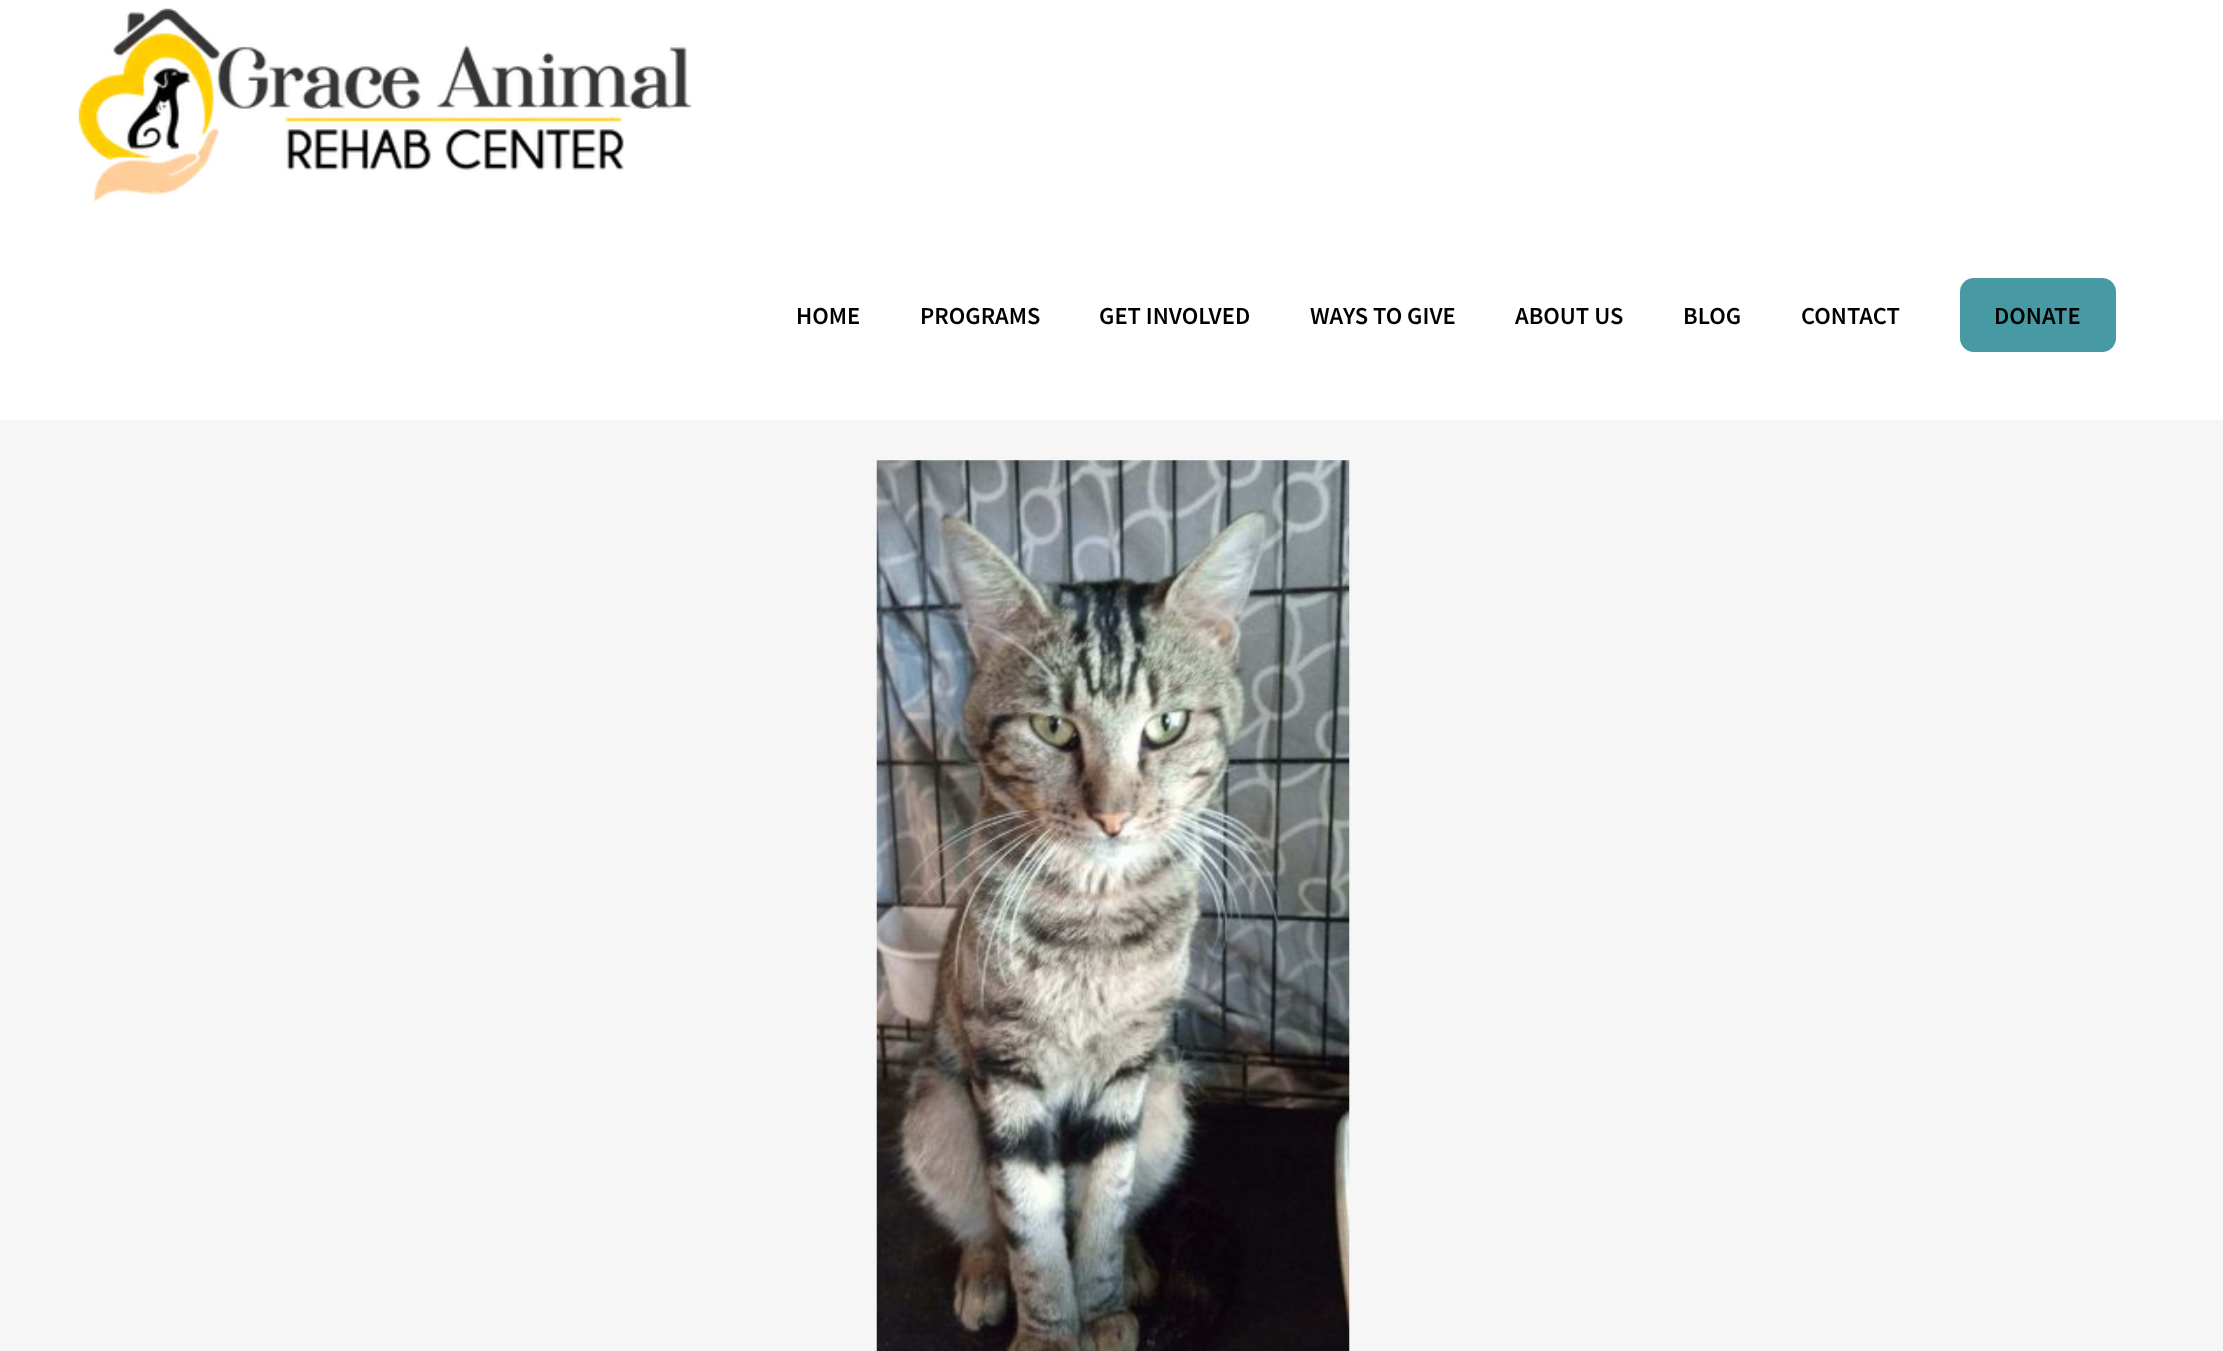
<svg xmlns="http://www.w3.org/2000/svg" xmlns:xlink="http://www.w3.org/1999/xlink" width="2223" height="1351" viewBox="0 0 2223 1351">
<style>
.cls-1{font:600 24.5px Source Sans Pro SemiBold;fill:#000000}
</style>
<rect width="100%" height="100%" fill="#f6f6f6"/>
<rect fill="#ffffff" x="0" y="0" width="2223" height="420"/>
<image xlink:href="image0.png" x="78" y="8" width="614" height="194"/>
<rect fill="#479aa3" x="1960" y="278" width="156" height="74" rx="14"/>
<image xlink:href="image1.png" x="876" y="460" width="474" height="891"/>
<text class="cls-1" x="796" y="324">HOME</text>
<text class="cls-1" x="920" y="324">PROGRAMS</text>
<text class="cls-1" x="1099" y="324">GET INVOLVED</text>
<text class="cls-1" x="1310" y="324">WAYS TO GIVE</text>
<text class="cls-1" x="1515" y="324">ABOUT US</text>
<text class="cls-1" x="1683" y="324">BLOG</text>
<text class="cls-1" x="1801" y="324">CONTACT</text>
<text class="cls-1" x="1994" y="324">DONATE</text>
</svg>
